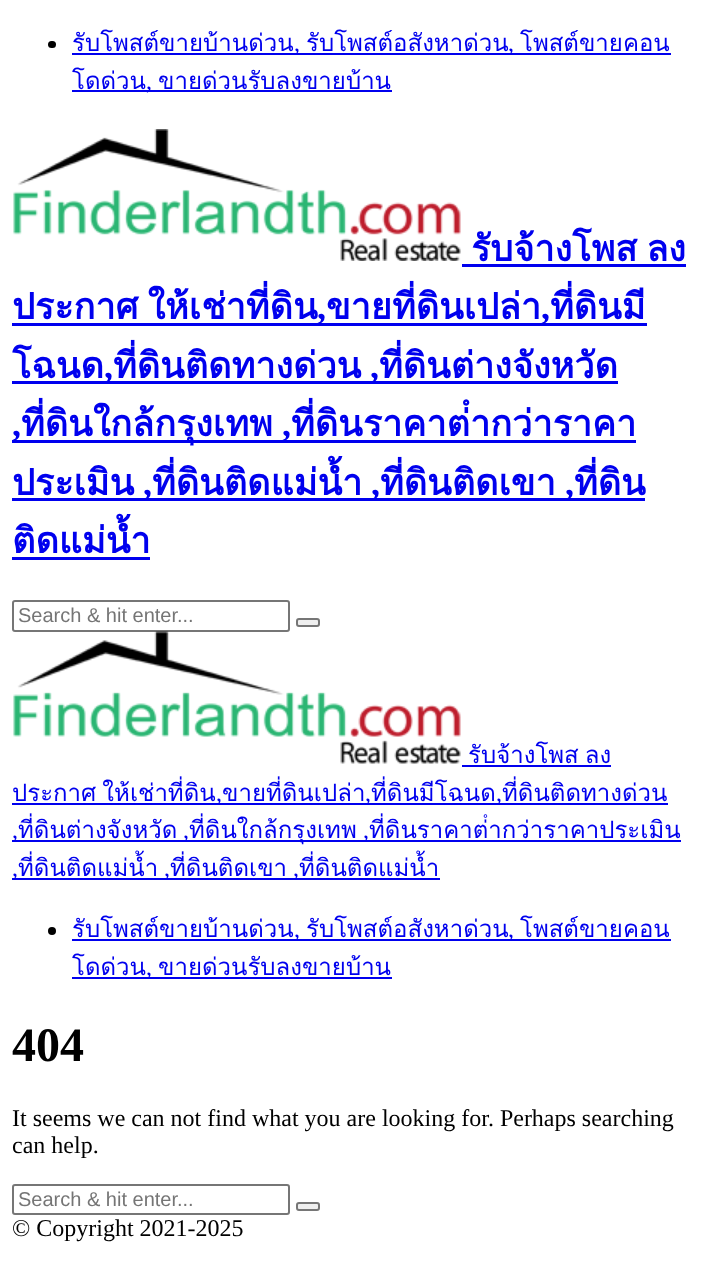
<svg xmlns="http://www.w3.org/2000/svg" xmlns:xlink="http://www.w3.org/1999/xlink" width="701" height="1261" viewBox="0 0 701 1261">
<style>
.cls-1{font:24px Loma;fill:#0000ee}
.cls-2{font:24px Liberation Serif;fill:#0000ee}
.cls-3{font:bold 36px Loma;fill:#0000ee}
.cls-4{font:bold 36px Liberation Serif;fill:#0000ee}
.cls-5{font:20px Liberation Sans;fill:#757575}
.cls-6{font:bold 48px Liberation Serif;fill:#000000}
.cls-7{font:24px Liberation Serif;fill:#000000}
</style>
<rect width="100%" height="100%" fill="#ffffff"/>
<rect fill="#000000" x="48" y="41" width="8" height="7" rx="3.5"/>
<rect fill="#0000ee" x="72" y="53" width="599" height="2"/>
<rect fill="#0000ee" x="72" y="90" width="320" height="2"/>
<image xlink:href="image0.png" x="13" y="129" width="448" height="132"/>
<rect fill="#0000ee" x="462" y="264" width="224" height="3"/>
<rect fill="#0000ee" x="12" y="323" width="635" height="3"/>
<rect fill="#0000ee" x="12" y="381" width="606" height="3"/>
<rect fill="#0000ee" x="12" y="440" width="624" height="3"/>
<rect fill="#0000ee" x="12" y="498" width="633" height="3"/>
<rect fill="#0000ee" x="12" y="557" width="138" height="3"/>
<rect fill="none" stroke="#767676" stroke-width="2" x="13" y="601" width="276" height="30" rx="2"/>
<rect fill="#efefef" stroke="#767676" stroke-width="2" x="297" y="619" width="22" height="7" rx="2"/>
<image xlink:href="image1.png" x="13" y="631" width="448" height="133"/>
<rect fill="#0000ee" x="462" y="765" width="149" height="2"/>
<rect fill="#0000ee" x="12" y="803" width="656" height="2"/>
<rect fill="#0000ee" x="12" y="840" width="669" height="2"/>
<rect fill="#0000ee" x="12" y="878" width="428" height="2"/>
<circle fill="#000000" cx="52" cy="931" r="4"/>
<rect fill="#0000ee" x="72" y="939" width="599" height="2"/>
<rect fill="#0000ee" x="72" y="977" width="320" height="2"/>
<rect fill="none" stroke="#767676" stroke-width="2" x="13" y="1185" width="276" height="29" rx="2"/>
<rect fill="#efefef" stroke="#767676" stroke-width="2" x="297" y="1203" width="22" height="7" rx="2"/>
<text class="cls-1" x="72" y="51">รับโพสต์ขายบ้านด่วน</text>
<text class="cls-1" x="520" y="51">โพสต์ขายคอน</text>
<text class="cls-2" x="294" y="51">,</text>
<text class="cls-1" x="306" y="51">รับโพสต์อสังหาด่วน</text>
<text class="cls-2" x="508" y="51">,</text>
<text class="cls-1" x="72" y="89">โดด่วน</text>
<text class="cls-2" x="146" y="89">,</text>
<text class="cls-1" x="158" y="89">ขายด่วนรับลงขายบ้าน</text>
<text class="cls-3" x="471" y="261" word-spacing="-3">รับจ้างโพส ลง</text>
<text class="cls-3" x="12" y="319" word-spacing="-3">ประกาศ ให้เช่าที่ดิน</text>
<text class="cls-4" x="317" y="319">,</text>
<text class="cls-3" x="326" y="319">ขายที่ดินเปล่า</text>
<text class="cls-4" x="541" y="319">,</text>
<text class="cls-3" x="550" y="319">ที่ดินมี</text>
<text class="cls-3" x="12" y="378">โฉนด</text>
<text class="cls-4" x="104" y="378">,</text>
<text class="cls-3" x="113" y="378">ที่ดินติดทางด่วน</text>
<text class="cls-4" x="370" y="378">,</text>
<text class="cls-3" x="379" y="378">ที่ดินต่างจังหวัด</text>
<text class="cls-4" x="12" y="436">,</text>
<text class="cls-3" x="21" y="436">ที่ดินใกล้กรุงเทพ</text>
<text class="cls-4" x="282" y="436">,</text>
<text class="cls-3" x="291" y="436">ที่ดินราคาต่ํากว่าราคา</text>
<text class="cls-3" x="12" y="495">ประเมิน</text>
<text class="cls-4" x="143" y="495">,</text>
<text class="cls-3" x="152" y="495">ที่ดินติดแม่น้ำ</text>
<text class="cls-4" x="371" y="495">,</text>
<text class="cls-3" x="380" y="495">ที่ดินติดเขา</text>
<text class="cls-4" x="565" y="495">,</text>
<text class="cls-3" x="574" y="495">ที่ดิน</text>
<text class="cls-3" x="12" y="553">ติดแม่น้ำ</text>
<text class="cls-5" x="18" y="622">Search &amp; hit enter...</text>
<text class="cls-1" x="468" y="763" word-spacing="-2">รับจ้างโพส ลง</text>
<text class="cls-1" x="12" y="801" word-spacing="-2">ประกาศ ให้เช่าที่ดิน</text>
<text class="cls-2" x="216" y="801">,</text>
<text class="cls-1" x="222" y="801">ขายที่ดินเปล่า</text>
<text class="cls-2" x="365" y="801">,</text>
<text class="cls-1" x="371" y="801">ที่ดินมีโฉนด</text>
<text class="cls-2" x="496" y="801">,</text>
<text class="cls-1" x="502" y="801">ที่ดินติดทางด่วน</text>
<text class="cls-2" x="12" y="838">,</text>
<text class="cls-1" x="18" y="838">ที่ดินต่างจังหวัด</text>
<text class="cls-2" x="183" y="838">,</text>
<text class="cls-1" x="189" y="838">ที่ดินใกล้กรุงเทพ</text>
<text class="cls-2" x="363" y="838">,</text>
<text class="cls-1" x="369" y="838">ที่ดินราคาต่ํากว่าราคาประเมิน</text>
<text class="cls-2" x="12" y="876">,</text>
<text class="cls-1" x="18" y="876">ที่ดินติดแม่น้ำ</text>
<text class="cls-2" x="164" y="876">,</text>
<text class="cls-1" x="170" y="876">ที่ดินติดเขา</text>
<text class="cls-2" x="293" y="876">,</text>
<text class="cls-1" x="299" y="876">ที่ดินติดแม่น้ำ</text>
<text class="cls-1" x="72" y="937">รับโพสต์ขายบ้านด่วน</text>
<text class="cls-1" x="520" y="937">โพสต์ขายคอน</text>
<text class="cls-2" x="294" y="937">,</text>
<text class="cls-1" x="306" y="937">รับโพสต์อสังหาด่วน</text>
<text class="cls-2" x="508" y="937">,</text>
<text class="cls-1" x="72" y="975">โดด่วน</text>
<text class="cls-2" x="146" y="975">,</text>
<text class="cls-1" x="158" y="975">ขายด่วนรับลงขายบ้าน</text>
<text class="cls-6" x="12" y="1061">404</text>
<text class="cls-7"><tspan x="12" y="1126">It seems we can not find what you are looking for. Perhaps searching</tspan><tspan x="12" y="1153">can help.</tspan></text>
<text class="cls-5" x="18" y="1206">Search &amp; hit enter...</text>
<text class="cls-7" x="12" y="1236">© Copyright 2021-2025</text>
</svg>
